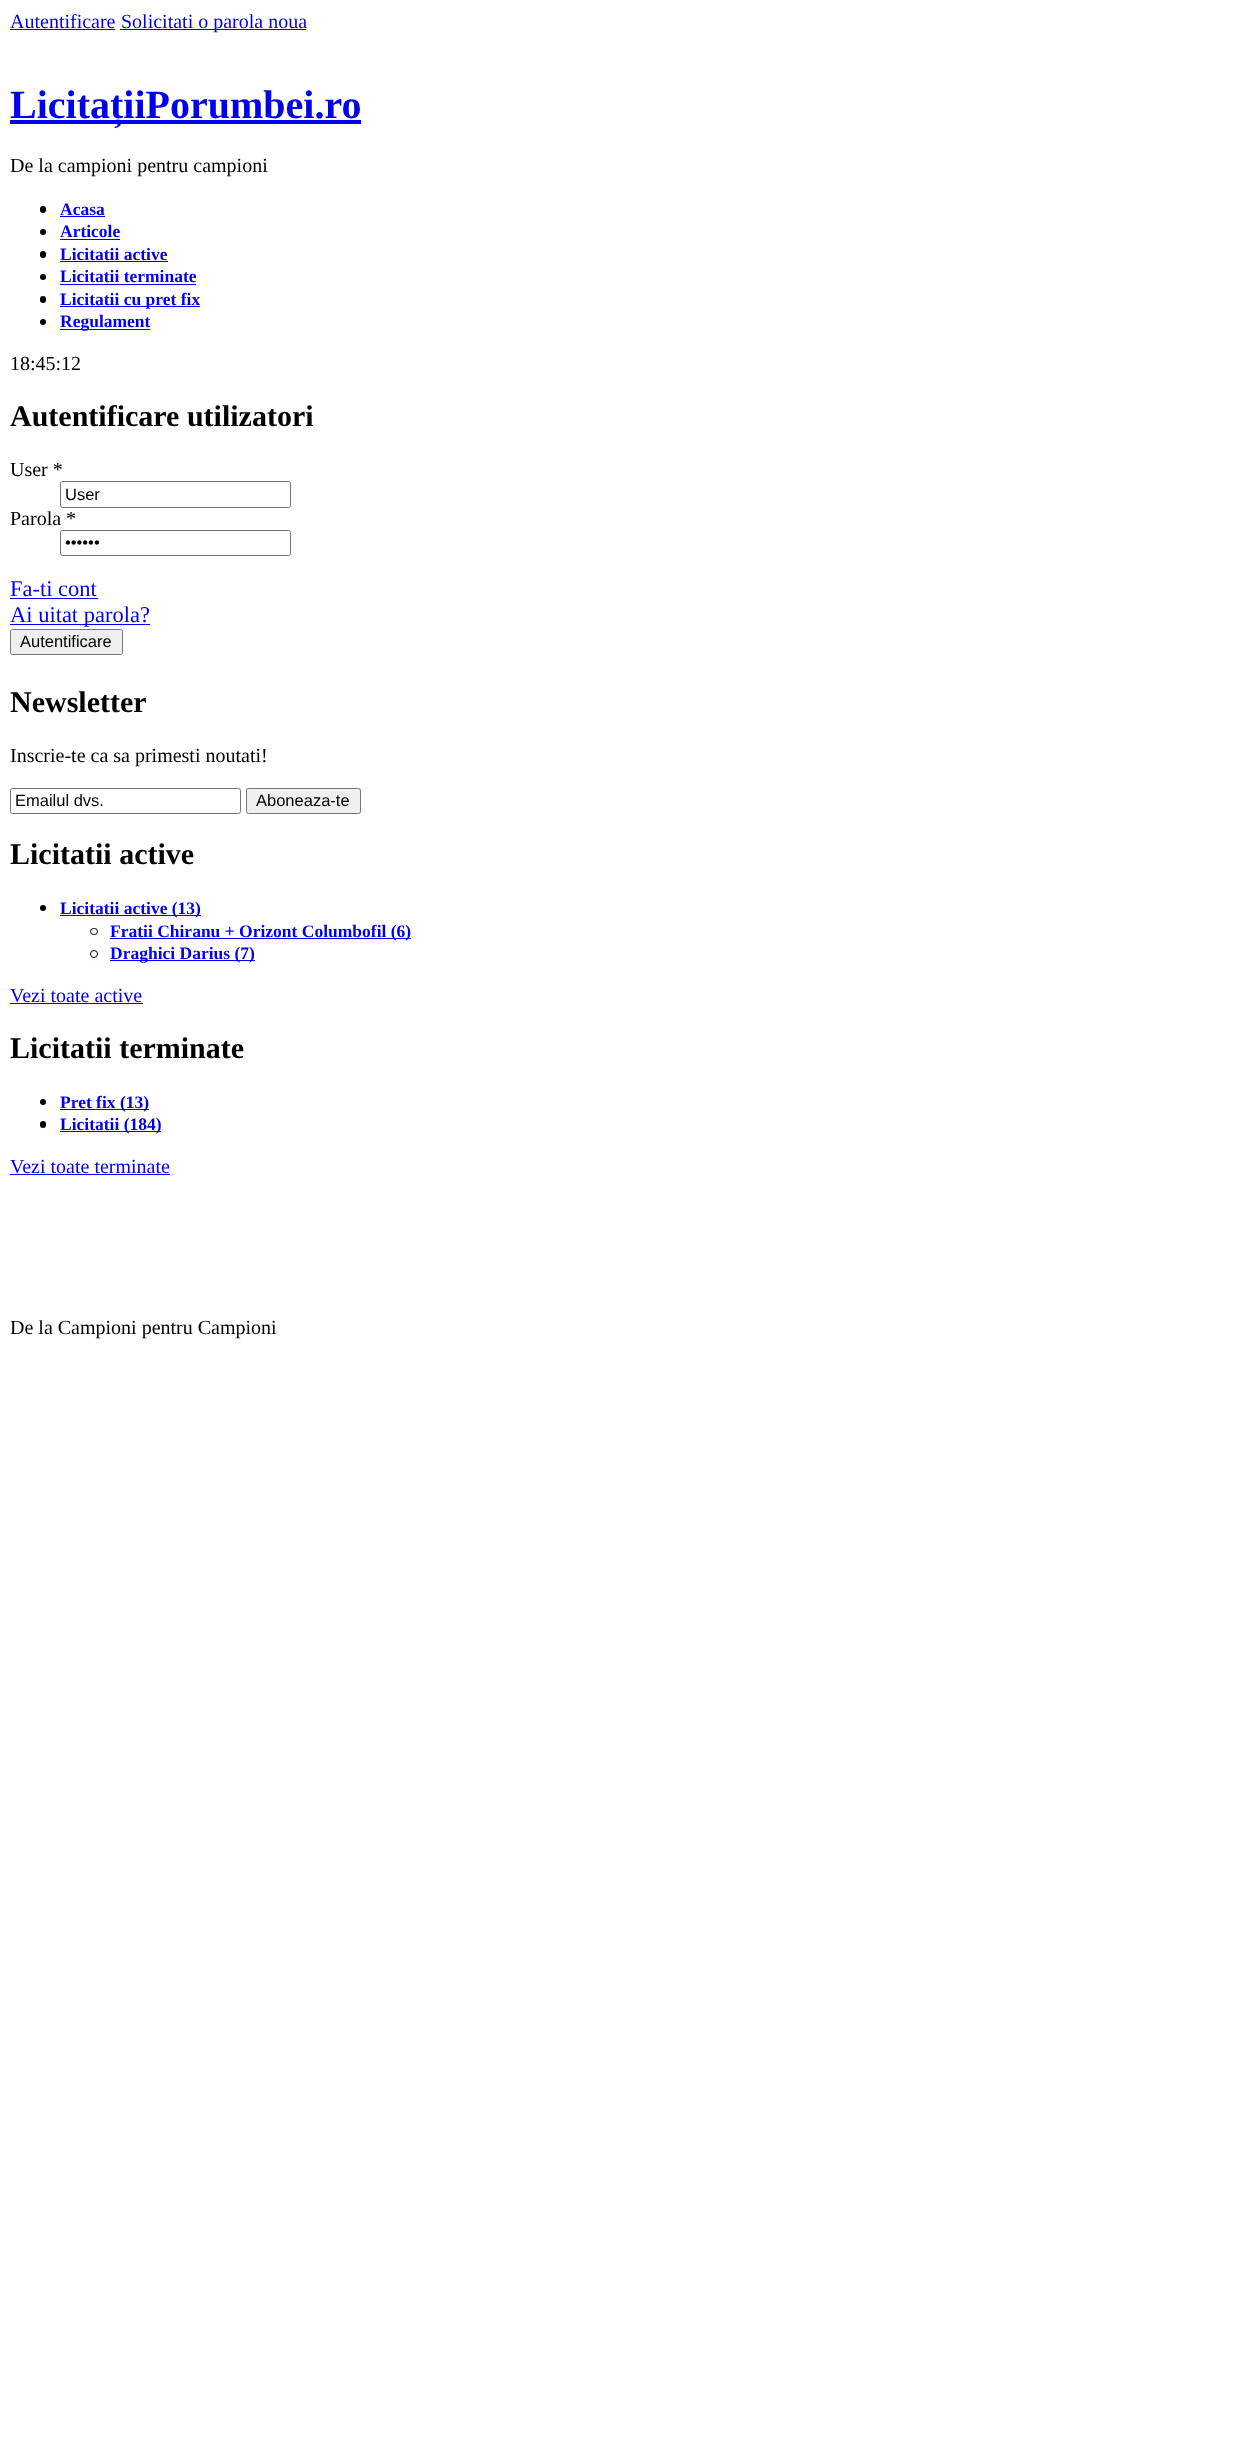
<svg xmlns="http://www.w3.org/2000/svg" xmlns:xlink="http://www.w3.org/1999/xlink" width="1260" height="2448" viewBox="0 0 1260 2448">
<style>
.cls-1{font:20px Liberation Serif;fill:#0000ee}
.cls-2{font:bold 40px Liberation Serif;fill:#0000ee}
.cls-3{font:20px Liberation Serif;fill:#000000}
.cls-4{font:bold 17.5px Liberation Serif;fill:#0000ee}
.cls-5{font:bold 30px Liberation Serif;fill:#000000}
.cls-6{font:16.5px Liberation Sans;fill:#000000}
.cls-7{font:22.5px Liberation Serif;fill:#0000ee}
</style>
<rect width="100%" height="100%" fill="#ffffff"/>
<rect fill="#0000ee" x="10" y="29" width="105" height="1"/>
<rect fill="#0000ee" x="120" y="29" width="186" height="1"/>
<rect fill="#0000ee" x="10" y="120" width="351" height="4"/>
<rect fill="#000000" x="40" y="206" width="6" height="7" rx="3"/>
<rect fill="#0000ee" x="60" y="216" width="45" height="1"/>
<circle fill="#000000" cx="43" cy="232" r="3"/>
<rect fill="#0000ee" x="60" y="239" width="60" height="1"/>
<rect fill="#000000" x="40" y="251" width="6" height="7" rx="3"/>
<rect fill="#0000ee" x="60" y="261" width="108" height="1"/>
<circle fill="#000000" cx="43" cy="277" r="3"/>
<rect fill="#0000ee" x="60" y="284" width="136" height="1"/>
<rect fill="#000000" x="40" y="296" width="6" height="7" rx="3"/>
<rect fill="#0000ee" x="60" y="306" width="140" height="1"/>
<circle fill="#000000" cx="43" cy="322" r="3"/>
<rect fill="#0000ee" x="60" y="329" width="90" height="1"/>
<rect fill="none" stroke="#767676" x="60.5" y="481.5" width="230" height="26" rx="2"/>
<rect fill="none" stroke="#767676" x="60.5" y="530.5" width="230" height="25" rx="2"/>
<rect fill="#0000ee" x="10" y="598" width="88" height="1"/>
<rect fill="#0000ee" x="10" y="624" width="140" height="1"/>
<rect fill="#efefef" stroke="#767676" x="10.5" y="629.5" width="112" height="25" rx="2"/>
<rect fill="none" stroke="#767676" x="10.5" y="788.5" width="230" height="25" rx="2"/>
<rect fill="#efefef" stroke="#767676" x="246.5" y="788.5" width="114" height="25" rx="2"/>
<circle fill="#000000" cx="43" cy="908" r="3"/>
<rect fill="#0000ee" x="60" y="915" width="141" height="1"/>
<rect fill="none" stroke="#000000" x="90.5" y="928.5" width="7" height="6" rx="3"/>
<rect fill="#0000ee" x="110" y="938" width="301" height="1"/>
<circle fill="none" stroke="#000000" cx="94" cy="954" r="3.5"/>
<rect fill="#0000ee" x="110" y="960" width="145" height="1"/>
<rect fill="#0000ee" x="10" y="1003" width="133" height="1"/>
<circle fill="#000000" cx="43" cy="1102" r="3"/>
<rect fill="#0000ee" x="60" y="1109" width="89" height="1"/>
<rect fill="#000000" x="40" y="1121" width="6" height="7" rx="3"/>
<rect fill="#0000ee" x="60" y="1131" width="101" height="1"/>
<rect fill="#0000ee" x="10" y="1174" width="160" height="1"/>
<text class="cls-1" x="10" y="28">Autentificare</text>
<text class="cls-1" x="121" y="28">Solicitati o parola noua</text>
<text class="cls-2" x="10" y="118">LicitațiiPorumbei.ro</text>
<text class="cls-3" x="10" y="172">De la campioni pentru campioni</text>
<text class="cls-4"><tspan x="60" y="215">Acasa</tspan><tspan x="60" y="237">Articole</tspan><tspan x="60" y="260">Licitatii active</tspan><tspan x="60" y="282">Licitatii terminate</tspan><tspan x="60" y="305">Licitatii cu pret fix</tspan><tspan x="60" y="327">Regulament</tspan></text>
<text class="cls-3" x="10" y="370">18:45:12</text>
<text class="cls-5" x="10" y="426">Autentificare utilizatori</text>
<text class="cls-3" x="10" y="476">User *</text>
<text class="cls-6" x="65" y="500">User</text>
<text class="cls-3" x="10" y="525">Parola *</text>
<text class="cls-6" x="65" y="548">••••••</text>
<text class="cls-7"><tspan x="10" y="596">Fa-ti cont</tspan><tspan x="10" y="622">Ai uitat parola?</tspan></text>
<text class="cls-6" x="20" y="647">Autentificare</text>
<text class="cls-5" x="10" y="712">Newsletter</text>
<text class="cls-3" x="10" y="762">Inscrie-te ca sa primesti noutati!</text>
<text class="cls-6" x="15" y="806">Emailul dvs.</text>
<text class="cls-6" x="256" y="806">Aboneaza-te</text>
<text class="cls-5" x="10" y="864">Licitatii active</text>
<text class="cls-4" x="60" y="914">Licitatii active (13)</text>
<text class="cls-4"><tspan x="110" y="937">Fratii Chiranu + Orizont Columbofil (6)</tspan><tspan x="110" y="959">Draghici Darius (7)</tspan></text>
<text class="cls-1" x="10" y="1002">Vezi toate active</text>
<text class="cls-5" x="10" y="1058">Licitatii terminate</text>
<text class="cls-4"><tspan x="60" y="1108">Pret fix (13)</tspan><tspan x="60" y="1130">Licitatii (184)</tspan></text>
<text class="cls-1" x="10" y="1173">Vezi toate terminate</text>
<text class="cls-3" x="10" y="1334">De la Campioni pentru Campioni</text>
</svg>
